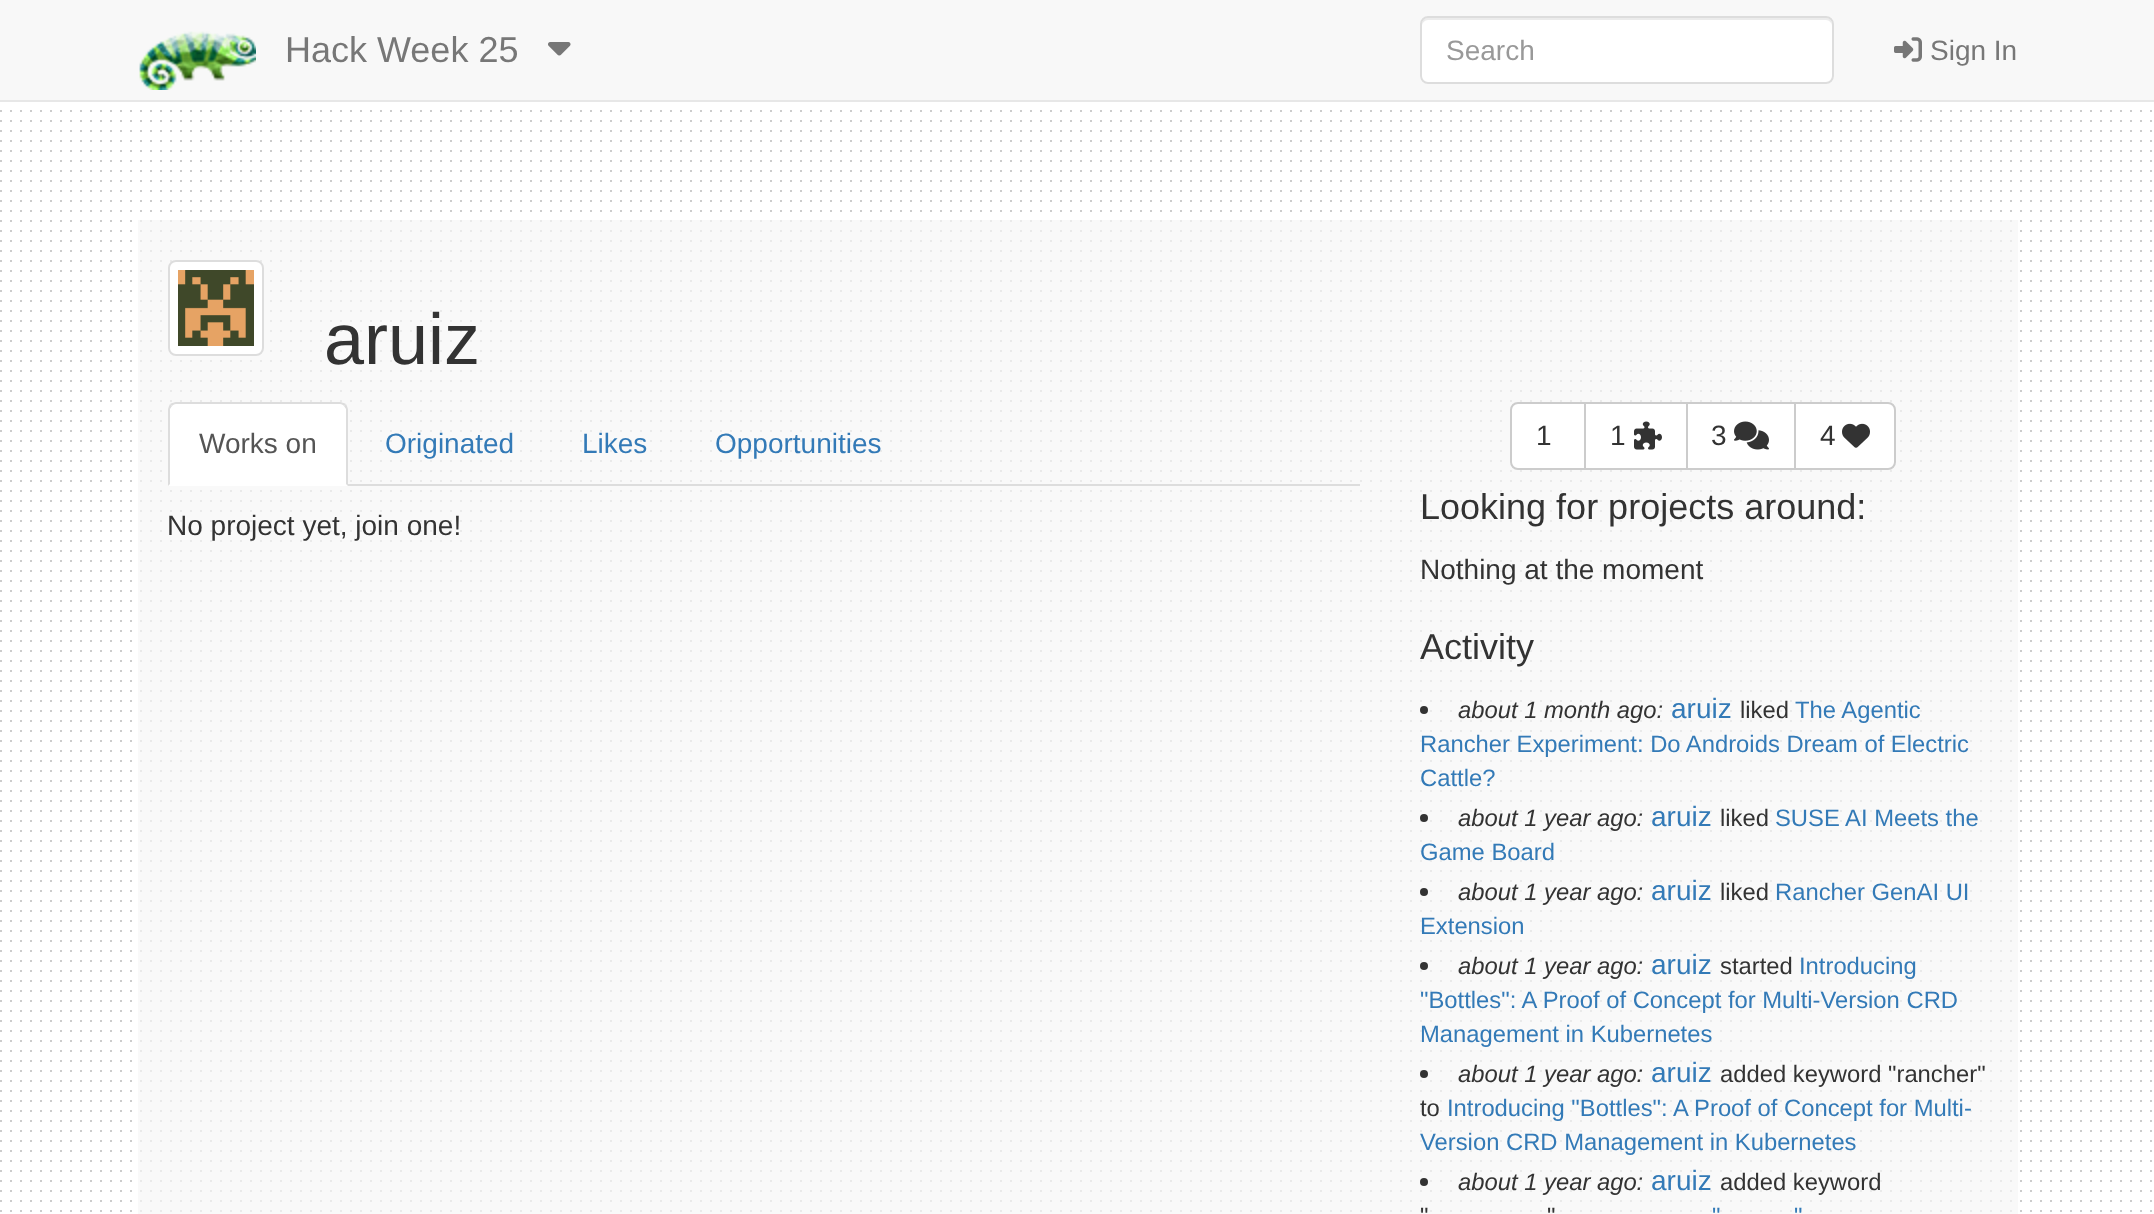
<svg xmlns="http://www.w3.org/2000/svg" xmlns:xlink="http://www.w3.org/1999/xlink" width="2154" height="1214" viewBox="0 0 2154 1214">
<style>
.cls-1{font:36px Liberation Sans;fill:#777777}
.cls-2{font:28px Liberation Sans;fill:#999999}
.cls-3{font:28px Liberation Sans;fill:#777777}
.cls-4{font:72px Liberation Sans;fill:#333333}
.cls-5{font:28px Liberation Sans;fill:#555555}
.cls-6{font:28px Liberation Sans;fill:#337ab7}
.cls-7{font:28px Liberation Sans;fill:#333333}
.cls-8{font:36px Liberation Sans;fill:#333333}
.cls-9{font:italic 23.8px Liberation Sans;fill:#333333}
.cls-10{font:23.8px Liberation Sans;fill:#333333}
.cls-11{font:23.8px Liberation Sans;fill:#337ab7}
</style>
<rect width="100%" height="100%" fill="#ffffff"/>
<image xlink:href="image0.png" x="0" y="102" width="2152" height="1110"/>
<rect fill="#f8f8f8" x="0" y="0" width="2154" height="100"/>
<rect fill="#e7e7e7" x="0" y="100" width="2154" height="2"/>
<image xlink:href="image1.png" x="139" y="31" width="117" height="59"/>
<image xlink:href="image2.png" x="548" y="42" width="23" height="14"/>
<rect fill="#ffffff" x="1420" y="16" width="414" height="68" rx="8"/>
<path fill="#ececec" d="M1428 20H1826C1829 20 1832 23 1832 26C1832 22 1831 18 1826 18H1428C1423 18 1422 22 1422 26C1422 23 1425 20 1428 20Z"/>
<rect fill="none" stroke="#dddddd" stroke-width="2" x="1421" y="17" width="412" height="66" rx="7"/>
<image xlink:href="image3.png" x="1894" y="37" width="28" height="25"/>
<rect fill="#f6f6f6" fill-opacity="0.7" x="138" y="220" width="1880" height="994"/>
<rect fill="#ffffff" stroke="#dddddd" stroke-width="2" x="169" y="261" width="94" height="94" rx="7"/>
<image xlink:href="image4.png" x="178" y="270" width="76" height="76"/>
<rect fill="#dddddd" x="348" y="484" width="1012" height="2"/>
<path fill="#ffffff" d="M176 402H340C344.5 402 348 405.5 348 410V486H168V410C168 405.5 171.5 402 176 402Z"/>
<path fill="#dddddd" d="M176 402C174 402 172 403 170 404L172 406C173 405 174 404 176 404H340C342 404 343 405 344 406L346 404C344 403 342 402 340 402Z"/>
<path fill="#dddddd" d="M348 486V410C348 408 347 406 346 404L344 406L346 409V484Z"/>
<path fill="#dddddd" d="M168 486L170 484V409L172 406L170 404C169 406 168 408 168 410Z"/>
<path fill="#ffffff" stroke="#cccccc" stroke-width="2" d="M1518 403H1585V469H1518C1514 469 1511 466 1511 462V410C1511 406 1514 403 1518 403Z"/>
<rect fill="#ffffff" stroke="#cccccc" stroke-width="2" x="1585" y="403" width="102" height="66"/>
<image xlink:href="image5.png" x="1634" y="421" width="28" height="29"/>
<rect fill="#ffffff" stroke="#cccccc" stroke-width="2" x="1687" y="403" width="108" height="66"/>
<image xlink:href="image6.png" x="1734" y="421" width="35" height="29"/>
<path fill="#ffffff" stroke="#cccccc" stroke-width="2" d="M1795 403H1888C1892 403 1895 406 1895 410V462C1895 466 1892 469 1888 469H1795Z"/>
<image xlink:href="image7.png" x="1842" y="423" width="28" height="25"/>
<circle fill="#333333" cx="1424" cy="710" r="4"/>
<circle fill="#333333" cx="1424" cy="818" r="4"/>
<circle fill="#333333" cx="1424" cy="892" r="4"/>
<circle fill="#333333" cx="1424" cy="966" r="4"/>
<circle fill="#333333" cx="1424" cy="1074" r="4"/>
<circle fill="#333333" cx="1424" cy="1182" r="4"/>
<text class="cls-1" x="285" y="62">Hack Week 25</text>
<text class="cls-2" x="1446" y="60">Search</text>
<text class="cls-3" x="1930" y="60">Sign In</text>
<text class="cls-4" x="324" y="364">aruiz</text>
<text class="cls-5" x="199" y="453">Works on</text>
<text class="cls-6" x="385" y="453">Originated</text>
<text class="cls-6" x="582" y="453">Likes</text>
<text class="cls-6" x="715" y="453">Opportunities</text>
<text class="cls-7" x="167" y="535">No project yet, join one!</text>
<text class="cls-7" x="1536" y="445">1</text>
<text class="cls-7" x="1610" y="445">1</text>
<text class="cls-7" x="1711" y="445">3</text>
<text class="cls-7" x="1820" y="445">4</text>
<text class="cls-8" x="1420" y="519">Looking for projects around:</text>
<text class="cls-7" x="1420" y="579">Nothing at the moment</text>
<text class="cls-8" x="1420" y="659">Activity</text>
<text class="cls-9" x="1458" y="718">about 1 month ago:</text>
<text class="cls-6" x="1671" y="718">aruiz</text>
<text class="cls-10" x="1740" y="718">liked</text>
<text class="cls-11" x="1795" y="718">The Agentic</text>
<text class="cls-11"><tspan x="1420" y="752">Rancher Experiment: Do Androids Dream of Electric</tspan><tspan x="1420" y="786">Cattle?</tspan></text>
<text class="cls-9" x="1458" y="826">about 1 year ago:</text>
<text class="cls-6" x="1651" y="826">aruiz</text>
<text class="cls-10" x="1720" y="826">liked</text>
<text class="cls-11" x="1775" y="826">SUSE AI Meets the</text>
<text class="cls-11" x="1420" y="860">Game Board</text>
<text class="cls-9" x="1458" y="900">about 1 year ago:</text>
<text class="cls-6" x="1651" y="900">aruiz</text>
<text class="cls-10" x="1720" y="900">liked</text>
<text class="cls-11" x="1775" y="900">Rancher GenAI UI</text>
<text class="cls-11" x="1420" y="934">Extension</text>
<text class="cls-9" x="1458" y="974">about 1 year ago:</text>
<text class="cls-6" x="1651" y="974">aruiz</text>
<text class="cls-10" x="1720" y="974">started</text>
<text class="cls-11" x="1799" y="974">Introducing</text>
<text class="cls-11"><tspan x="1420" y="1008">"Bottles": A Proof of Concept for Multi-Version CRD</tspan><tspan x="1420" y="1042">Management in Kubernetes</tspan></text>
<text class="cls-9" x="1458" y="1082">about 1 year ago:</text>
<text class="cls-6" x="1651" y="1082">aruiz</text>
<text class="cls-10" x="1720" y="1082">added keyword "rancher"</text>
<text class="cls-10" x="1420" y="1116">to</text>
<text class="cls-11" x="1447" y="1116">Introducing "Bottles": A Proof of Concept for Multi-</text>
<text class="cls-11" x="1420" y="1150">Version CRD Management in Kubernetes</text>
<text class="cls-9" x="1458" y="1190">about 1 year ago:</text>
<text class="cls-6" x="1651" y="1190">aruiz</text>
<text class="cls-10" x="1720" y="1190">added keyword</text>
<text class="cls-10" x="1420" y="1224">"</text>
<text class="cls-10" x="1547" y="1224">"</text>
<text class="cls-11" x="1712" y="1224">"</text>
<text class="cls-11" x="1794" y="1224">"</text>
</svg>
